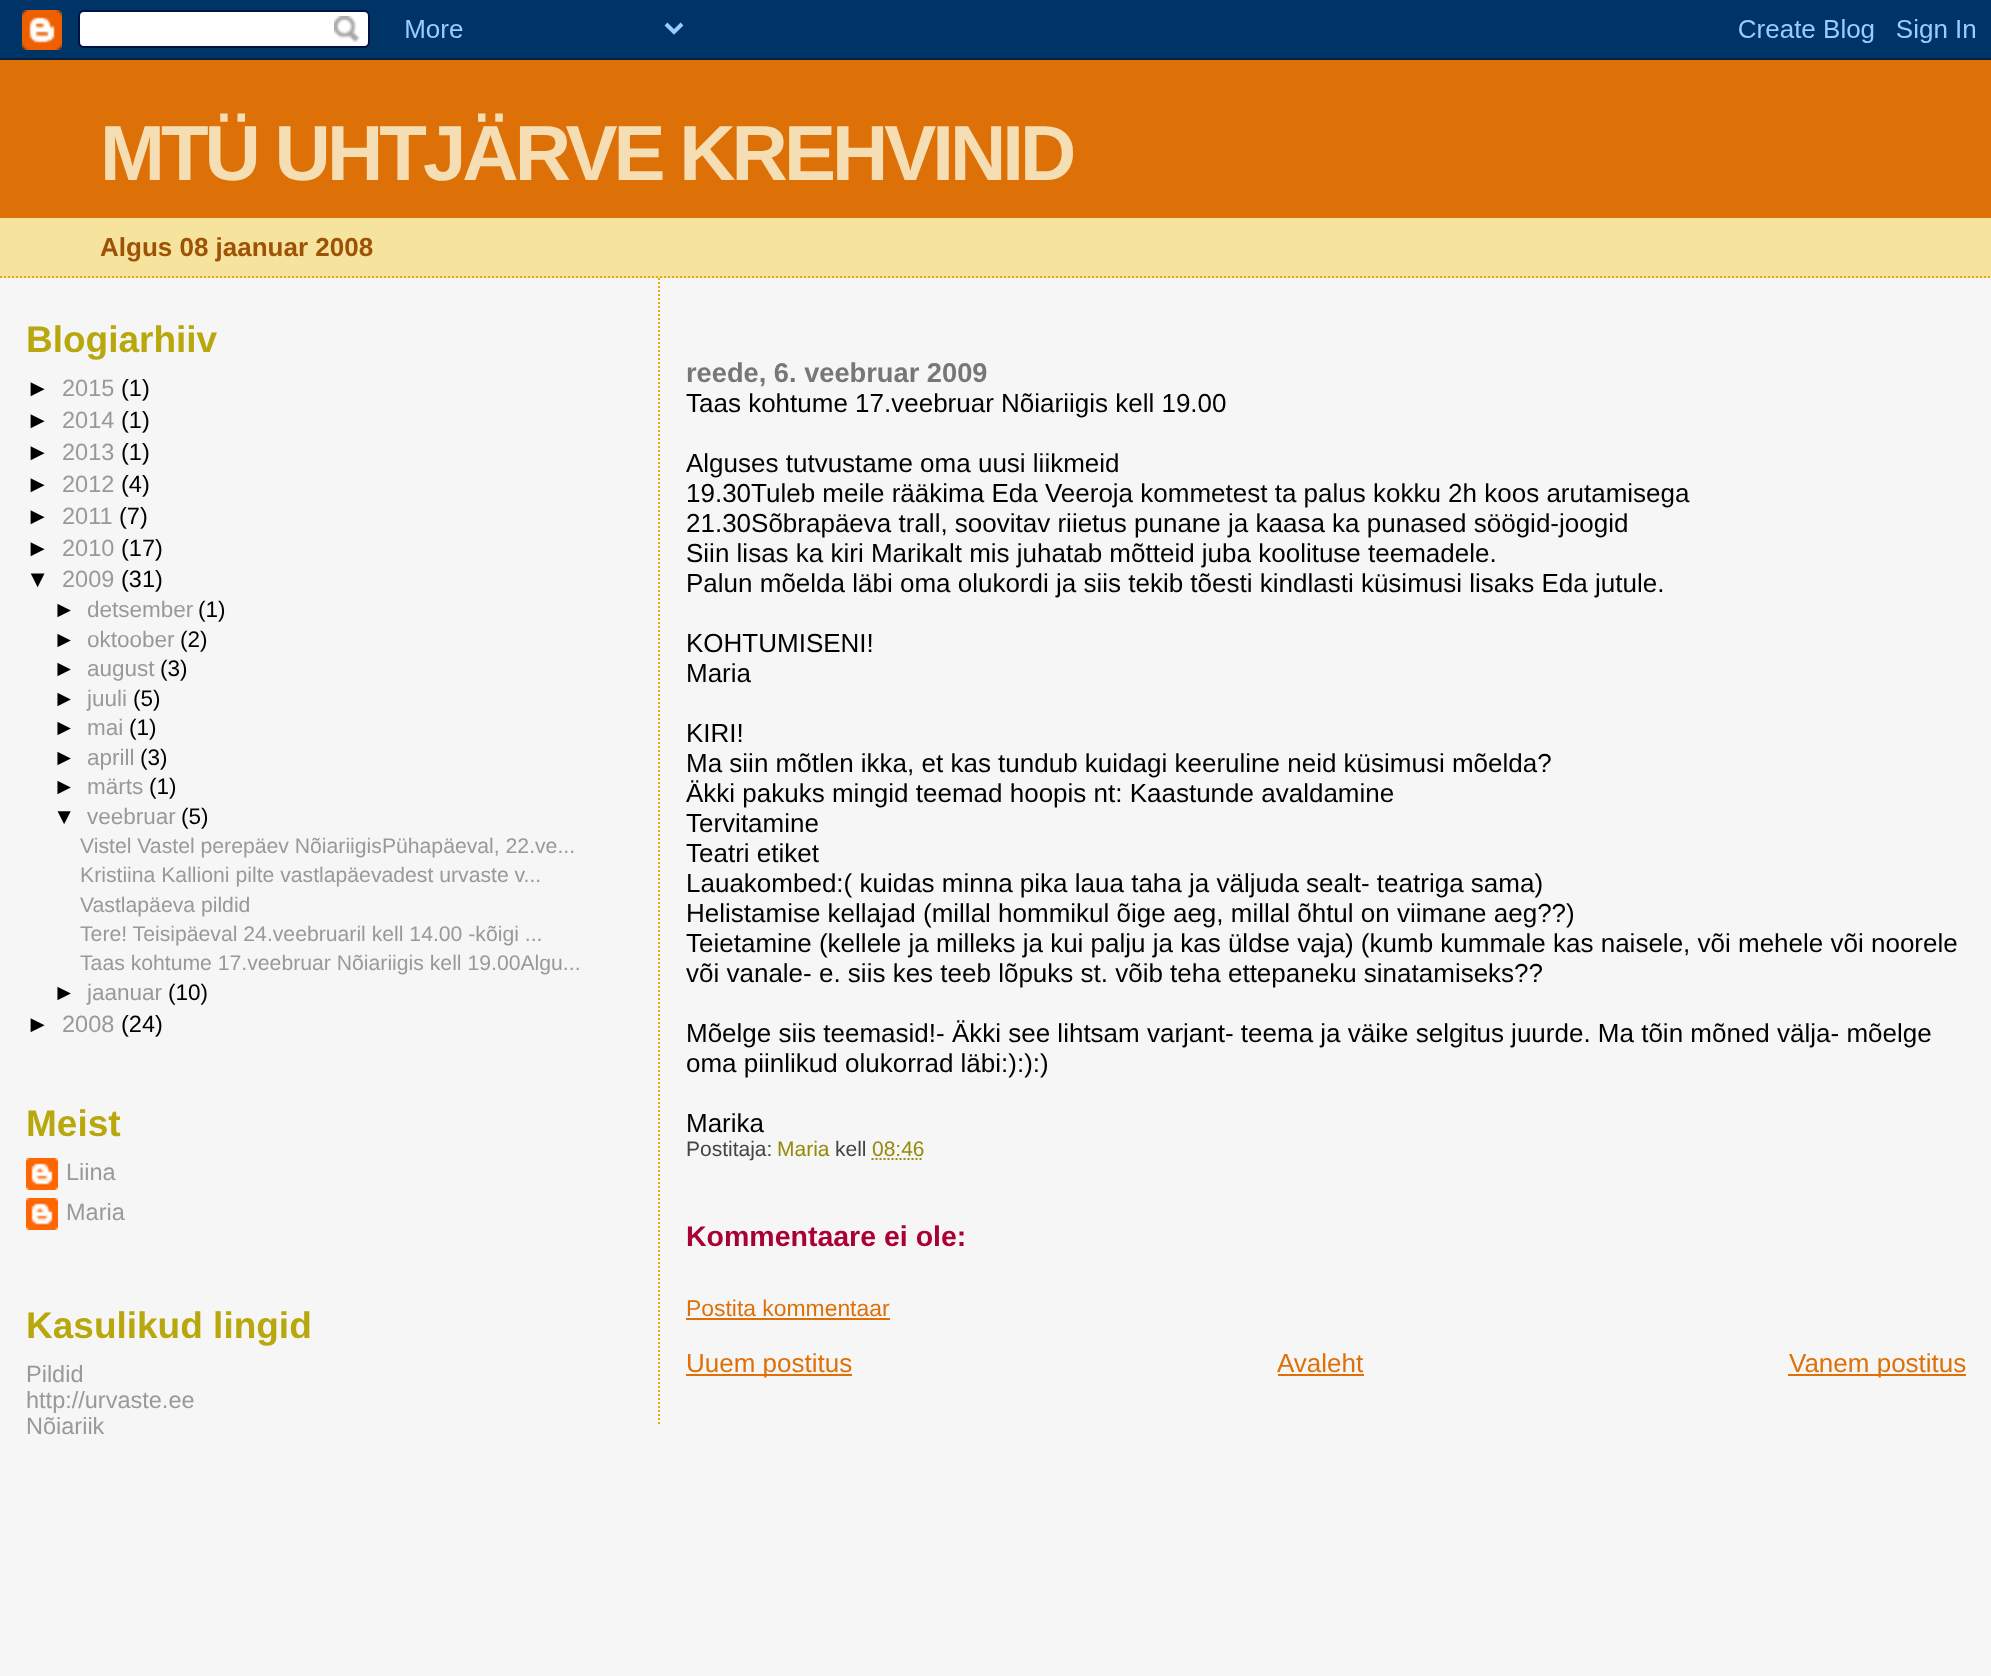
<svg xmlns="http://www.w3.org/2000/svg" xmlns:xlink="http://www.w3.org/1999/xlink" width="1991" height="1676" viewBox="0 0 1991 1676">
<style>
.cls-1{font:bold 78px Liberation Sans;letter-spacing:-4px;fill:#f5deb3}
.cls-2{font:bold 26px Liberation Sans;fill:#9e5205}
.cls-3{font:bold 37px Liberation Sans;fill:#b8a80d}
.cls-4{font:23.5px Liberation Sans;fill:#000000}
.cls-5{font:23.5px Liberation Sans;fill:#999999}
.cls-6{font:22.5px Liberation Sans;fill:#000000}
.cls-7{font:22.5px Liberation Sans;fill:#999999}
.cls-8{font:21.2px Liberation Sans;fill:#999999}
.cls-9{font:bold 27.25px Liberation Sans;fill:#777777}
.cls-10{font:26px Liberation Sans;fill:#000000}
.cls-11{font:21px Liberation Sans;fill:#444444}
.cls-12{font:21px Liberation Sans;fill:#968a0a}
.cls-13{font:bold 28.5px Liberation Sans;fill:#aa0033}
.cls-14{font:22.9px Liberation Sans;fill:#de7008}
.cls-15{font:26px Liberation Sans;fill:#de7008}
</style>
<rect width="100%" height="100%" fill="#f6f6f6"/>
<image xlink:href="image0.png" x="0" y="0" width="1991" height="60"/>
<rect fill="#f5e39e" x="0" y="218" width="1991" height="60"/>
<path fill="none" stroke="#e0ad12" stroke-width="2" stroke-dasharray="2 2" d="M0 277H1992"/>
<rect fill="#de7008" x="0" y="60" width="1991" height="158"/>
<image xlink:href="image1.png" x="26" y="1158" width="32" height="32"/>
<image xlink:href="image1.png" x="26" y="1198" width="32" height="32"/>
<path fill="none" stroke="#e0ad12" stroke-width="2" stroke-dasharray="2 2" d="M659 278V1424"/>
<path fill="none" stroke="#968a0a" stroke-width="2" stroke-dasharray="2 2" d="M871.5 1159H923.5"/>
<rect fill="#de7008" x="686" y="1318" width="204" height="2"/>
<rect fill="#de7008" x="686" y="1374" width="166" height="2"/>
<rect fill="#de7008" x="1278" y="1374" width="86" height="2"/>
<rect fill="#de7008" x="1788" y="1374" width="178" height="2"/>
<text class="cls-1" x="100" y="180">MTÜ UHTJÄRVE KREHVINID</text>
<text class="cls-2" x="100" y="256">Algus 08 jaanuar 2008</text>
<text class="cls-3" x="26" y="352">Blogiarhiiv</text>
<text class="cls-4" x="26" y="396">►</text>
<text class="cls-5" x="62" y="396">2015</text>
<text class="cls-4" x="121" y="396">(1)</text>
<text class="cls-4" x="26" y="428">►</text>
<text class="cls-5" x="62" y="428">2014</text>
<text class="cls-4" x="121" y="428">(1)</text>
<text class="cls-4" x="26" y="460">►</text>
<text class="cls-5" x="62" y="460">2013</text>
<text class="cls-4" x="121" y="460">(1)</text>
<text class="cls-4" x="26" y="492">►</text>
<text class="cls-5" x="62" y="492">2012</text>
<text class="cls-4" x="121" y="492">(4)</text>
<text class="cls-4" x="26" y="524">►</text>
<text class="cls-5" x="62" y="524">2011</text>
<text class="cls-4" x="119" y="524">(7)</text>
<text class="cls-4" x="26" y="556">►</text>
<text class="cls-5" x="62" y="556">2010</text>
<text class="cls-4" x="121" y="556">(17)</text>
<text class="cls-4" x="26" y="587">▼</text>
<text class="cls-5" x="62" y="587">2009</text>
<text class="cls-4" x="121" y="587">(31)</text>
<text class="cls-6" x="53" y="617">►</text>
<text class="cls-7" x="87" y="617">detsember</text>
<text class="cls-6" x="198" y="617">(1)</text>
<text class="cls-6" x="53" y="647">►</text>
<text class="cls-7" x="87" y="647">oktoober</text>
<text class="cls-6" x="180" y="647">(2)</text>
<text class="cls-6" x="53" y="676">►</text>
<text class="cls-7" x="87" y="676">august</text>
<text class="cls-6" x="160" y="676">(3)</text>
<text class="cls-6" x="53" y="706">►</text>
<text class="cls-7" x="87" y="706">juuli</text>
<text class="cls-6" x="133" y="706">(5)</text>
<text class="cls-6" x="53" y="735">►</text>
<text class="cls-7" x="87" y="735">mai</text>
<text class="cls-6" x="129" y="735">(1)</text>
<text class="cls-6" x="53" y="765">►</text>
<text class="cls-7" x="87" y="765">aprill</text>
<text class="cls-6" x="140" y="765">(3)</text>
<text class="cls-6" x="53" y="794">►</text>
<text class="cls-7" x="87" y="794">märts</text>
<text class="cls-6" x="149" y="794">(1)</text>
<text class="cls-6" x="53" y="824">▼</text>
<text class="cls-7" x="87" y="824">veebruar</text>
<text class="cls-6" x="181" y="824">(5)</text>
<text class="cls-8"><tspan x="80" y="853">Vistel Vastel perepäev NõiariigisPühapäeval, 22.ve...</tspan><tspan x="80" y="882">Kristiina Kallioni pilte vastlapäevadest urvaste v...</tspan><tspan x="80" y="912">Vastlapäeva pildid</tspan><tspan x="80" y="941">Tere! Teisipäeval 24.veebruaril kell 14.00 -kõigi ...</tspan><tspan x="80" y="970">Taas kohtume 17.veebruar Nõiariigis kell 19.00Algu...</tspan></text>
<text class="cls-6" x="53" y="1000">►</text>
<text class="cls-7" x="87" y="1000">jaanuar</text>
<text class="cls-6" x="168" y="1000">(10)</text>
<text class="cls-4" x="26" y="1032">►</text>
<text class="cls-5" x="62" y="1032">2008</text>
<text class="cls-4" x="121" y="1032">(24)</text>
<text class="cls-3" x="26" y="1136">Meist</text>
<text class="cls-5"><tspan x="66" y="1180">Liina</tspan><tspan x="66" y="1220">Maria</tspan></text>
<text class="cls-3" x="26" y="1338">Kasulikud lingid</text>
<text class="cls-5"><tspan x="26" y="1382">Pildid</tspan><tspan x="26" y="1408">http://urvaste.ee</tspan><tspan x="26" y="1434">Nõiariik</tspan></text>
<text class="cls-9" x="686" y="382">reede, 6. veebruar 2009</text>
<text class="cls-10" x="686" y="412">Taas kohtume 17.veebruar Nõiariigis kell 19.00</text>
<text class="cls-10"><tspan x="686" y="472">Alguses tutvustame oma uusi liikmeid</tspan><tspan x="686" y="502">19.30Tuleb meile rääkima Eda Veeroja kommetest ta palus kokku 2h koos arutamisega</tspan><tspan x="686" y="532">21.30Sõbrapäeva trall, soovitav riietus punane ja kaasa ka punased söögid-joogid</tspan><tspan x="686" y="562">Siin lisas ka kiri Marikalt mis juhatab mõtteid juba koolituse teemadele.</tspan><tspan x="686" y="592">Palun mõelda läbi oma olukordi ja siis tekib tõesti kindlasti küsimusi lisaks Eda jutule.</tspan></text>
<text class="cls-10"><tspan x="686" y="652">KOHTUMISENI!</tspan><tspan x="686" y="682">Maria</tspan></text>
<text class="cls-10"><tspan x="686" y="742">KIRI!</tspan><tspan x="686" y="772">Ma siin mõtlen ikka, et kas tundub kuidagi keeruline neid küsimusi mõelda?</tspan><tspan x="686" y="802">Äkki pakuks mingid teemad hoopis nt: Kaastunde avaldamine</tspan><tspan x="686" y="832">Tervitamine</tspan><tspan x="686" y="862">Teatri etiket</tspan><tspan x="686" y="892">Lauakombed:( kuidas minna pika laua taha ja väljuda sealt- teatriga sama)</tspan><tspan x="686" y="922">Helistamise kellajad (millal hommikul õige aeg, millal õhtul on viimane aeg??)</tspan><tspan x="686" y="952">Teietamine (kellele ja milleks ja kui palju ja kas üldse vaja) (kumb kummale kas naisele, või mehele või noorele</tspan><tspan x="686" y="982">või vanale- e. siis kes teeb lõpuks st. võib teha ettepaneku sinatamiseks??</tspan></text>
<text class="cls-10"><tspan x="686" y="1042">Mõelge siis teemasid!- Äkki see lihtsam varjant- teema ja väike selgitus juurde. Ma tõin mõned välja- mõelge</tspan><tspan x="686" y="1072">oma piinlikud olukorrad läbi:):):)</tspan></text>
<text class="cls-10" x="686" y="1132">Marika</text>
<text class="cls-11" x="686" y="1156">Postitaja:</text>
<text class="cls-12" x="777" y="1156">Maria</text>
<text class="cls-11" x="835" y="1156">kell</text>
<text class="cls-12" x="872" y="1156">08:46</text>
<text class="cls-13" x="686" y="1246">Kommentaare ei ole:</text>
<text class="cls-14" x="686" y="1316">Postita kommentaar</text>
<text class="cls-15" x="686" y="1372">Uuem postitus</text>
<text class="cls-15" x="1277" y="1372">Avaleht</text>
<text class="cls-15" x="1789" y="1372">Vanem postitus</text>
</svg>
